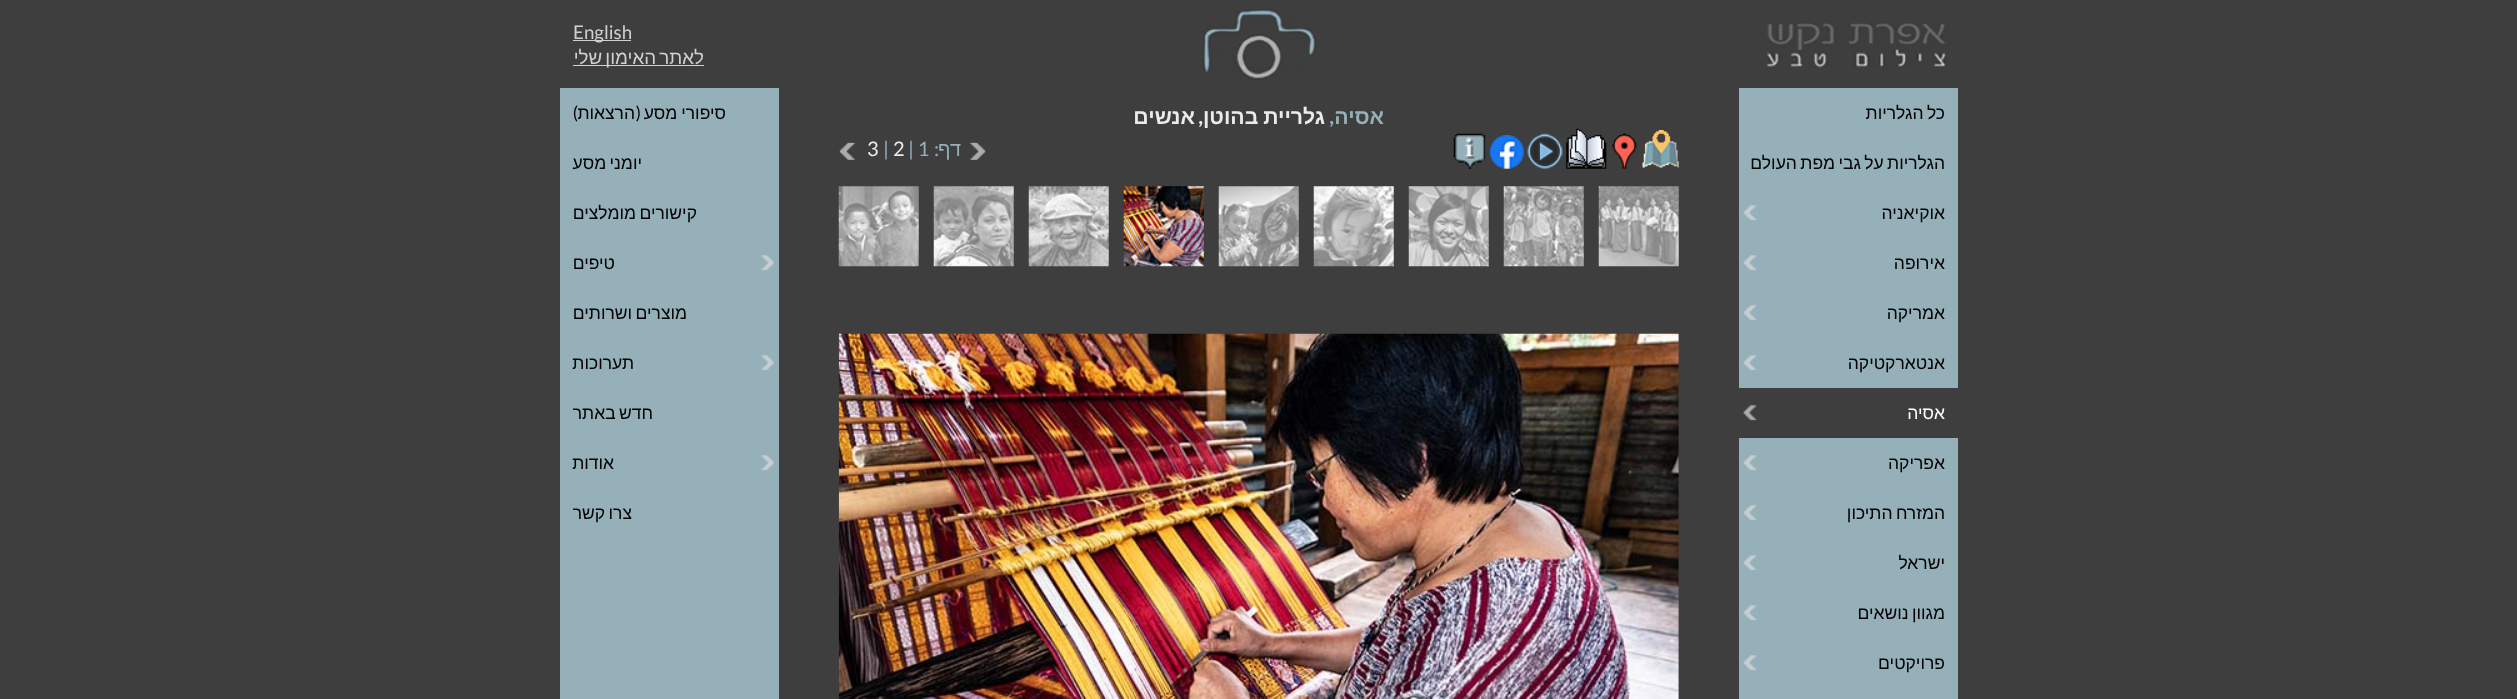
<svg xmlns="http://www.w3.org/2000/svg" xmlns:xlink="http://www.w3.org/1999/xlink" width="2517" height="699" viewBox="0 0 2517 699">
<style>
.cls-1{font:18.75px Lato;fill:#d1d1d1}
.cls-2{font:18.75px Liberation Sans;direction:rtl;fill:#d1d1d1}
.cls-3{font:17.5px Liberation Sans;direction:rtl;fill:#000000}
.cls-4{font:17.5px Liberation Sans;direction:rtl;fill:#ffffff}
.cls-5{font:17.5px Lato;direction:rtl;fill:#000000}
.cls-6{font:bold 21.25px Liberation Sans;direction:rtl;fill:#95b0b9}
.cls-7{font:bold 21.25px Lato;direction:rtl;fill:#95b0b9}
.cls-8{font:bold 21.25px Liberation Sans;direction:rtl;fill:#ebebeb}
.cls-9{font:bold 21.25px Lato;direction:rtl;fill:#ebebeb}
.cls-10{font:20px Liberation Sans;direction:rtl;fill:#95b0b9}
.cls-11{font:20px Lato;direction:rtl;fill:#95b0b9}
.cls-12{font:20px Lato;fill:#95b0b9}
.cls-13{font:20px Lato;fill:#ebebeb}
</style>
<rect width="100%" height="100%" fill="#3e3e3e"/>
<image xlink:href="image0.png" x="1202" y="9" width="115" height="71"/>
<image xlink:href="image1.png" x="1766" y="23" width="180" height="45"/>
<rect fill="#d1d1d1" x="573" y="40" width="58" height="1"/>
<rect fill="#d1d1d1" x="573" y="65" width="131" height="1"/>
<rect fill="#95b0b9" x="1739" y="88" width="219" height="611"/>
<image xlink:href="image2.png" x="1743" y="205" width="14" height="16"/>
<image xlink:href="image2.png" x="1743" y="255" width="14" height="16"/>
<image xlink:href="image2.png" x="1743" y="305" width="14" height="16"/>
<image xlink:href="image2.png" x="1743" y="355" width="14" height="16"/>
<rect fill="#3e3e3e" x="1739" y="388" width="219" height="50"/>
<image xlink:href="image3.png" x="1743" y="404" width="14" height="17"/>
<image xlink:href="image2.png" x="1743" y="455" width="14" height="16"/>
<image xlink:href="image2.png" x="1743" y="505" width="14" height="16"/>
<image xlink:href="image2.png" x="1743" y="555" width="14" height="16"/>
<image xlink:href="image2.png" x="1743" y="605" width="14" height="16"/>
<image xlink:href="image2.png" x="1743" y="655" width="14" height="16"/>
<rect fill="#95b0b9" x="560" y="88" width="219" height="611"/>
<image xlink:href="image4.png" x="761" y="255" width="13" height="16"/>
<image xlink:href="image4.png" x="761" y="355" width="13" height="16"/>
<image xlink:href="image4.png" x="761" y="455" width="13" height="16"/>
<image xlink:href="image5.png" x="1642" y="130" width="37" height="38"/>
<image xlink:href="image6.png" x="1612" y="133" width="25" height="36"/>
<image xlink:href="image7.png" x="1566" y="128" width="41" height="41"/>
<image xlink:href="image8.png" x="1527" y="133" width="36" height="36"/>
<image xlink:href="image9.png" x="1490" y="135" width="34" height="34"/>
<image xlink:href="image10.png" x="1453" y="133" width="33" height="36"/>
<image xlink:href="image11.png" x="969" y="142" width="17" height="18"/>
<image xlink:href="image12.png" x="839" y="142" width="17" height="18"/>
<image xlink:href="image13.png" x="1598" y="186" width="81" height="81"/>
<image xlink:href="image14.png" x="1503" y="186" width="81" height="81"/>
<image xlink:href="image15.png" x="1408" y="186" width="81" height="81"/>
<image xlink:href="image16.png" x="1313" y="186" width="81" height="81"/>
<image xlink:href="image17.png" x="1218" y="186" width="81" height="81"/>
<image xlink:href="image18.png" x="1123" y="186" width="81" height="81"/>
<image xlink:href="image19.png" x="1028" y="186" width="81" height="81"/>
<image xlink:href="image20.png" x="933" y="186" width="81" height="81"/>
<image xlink:href="image21.png" x="838" y="186" width="81" height="81"/>
<image xlink:href="image22.png" x="838" y="333" width="841" height="366"/>
<text class="cls-1" x="573" y="39">English</text>
<text class="cls-2" x="704" y="64" word-spacing="-2">לאתר האימון שלי</text>
<text class="cls-3" x="1945" y="119" word-spacing="-1.5">כל הגלריות</text>
<text class="cls-3" x="1945" y="169" word-spacing="-1.5">הגלריות על גבי מפת העולם</text>
<text class="cls-3" x="1945" y="219">אוקיאניה</text>
<text class="cls-3" x="1945" y="269">אירופה</text>
<text class="cls-3" x="1945" y="319">אמריקה</text>
<text class="cls-3" x="1945" y="369">אנטארקטיקה</text>
<text class="cls-4" x="1945" y="419">אסיה</text>
<text class="cls-3" x="1945" y="469">אפריקה</text>
<text class="cls-3" x="1945" y="519" word-spacing="-1.5">המזרח התיכון</text>
<text class="cls-3" x="1945" y="569">ישראל</text>
<text class="cls-3" x="1945" y="619" word-spacing="-1.5">מגוון נושאים</text>
<text class="cls-3" x="1945" y="669">פרויקטים</text>
<text class="cls-3" x="726" y="119" word-spacing="-1">סיפורי מסע</text>
<text class="cls-5" x="641" y="119">(</text>
<text class="cls-3" x="635" y="119">הרצאות</text>
<text class="cls-5" x="578" y="119">)</text>
<text class="cls-3" x="642" y="169" word-spacing="-1.5">יומני מסע</text>
<text class="cls-3" x="697" y="219" word-spacing="-1.5">קישורים מומלצים</text>
<text class="cls-3" x="615" y="269">טיפים</text>
<text class="cls-3" x="687" y="319" word-spacing="-1.5">מוצרים ושרותים</text>
<text class="cls-3" x="634" y="369">תערוכות</text>
<text class="cls-3" x="653" y="419" word-spacing="-1.5">חדש באתר</text>
<text class="cls-3" x="614" y="469">אודות</text>
<text class="cls-3" x="632" y="519" word-spacing="-1.5">צרו קשר</text>
<text class="cls-6" x="1384" y="124">אסיה</text>
<text class="cls-7" x="1334" y="124">,</text>
<text class="cls-8" x="1325" y="124" word-spacing="-1">גלריית בהוטן</text>
<text class="cls-9" x="1203" y="124">,</text>
<text class="cls-8" x="1195" y="124">אנשים</text>
<text class="cls-10" x="961" y="156">דף</text>
<text class="cls-11" x="939" y="156">:</text>
<text class="cls-12" x="908" y="156">| 1</text>
<text class="cls-13" x="893" y="156">2</text>
<text class="cls-12" x="883" y="156">|</text>
<text class="cls-13" x="867" y="156">3</text>
</svg>
